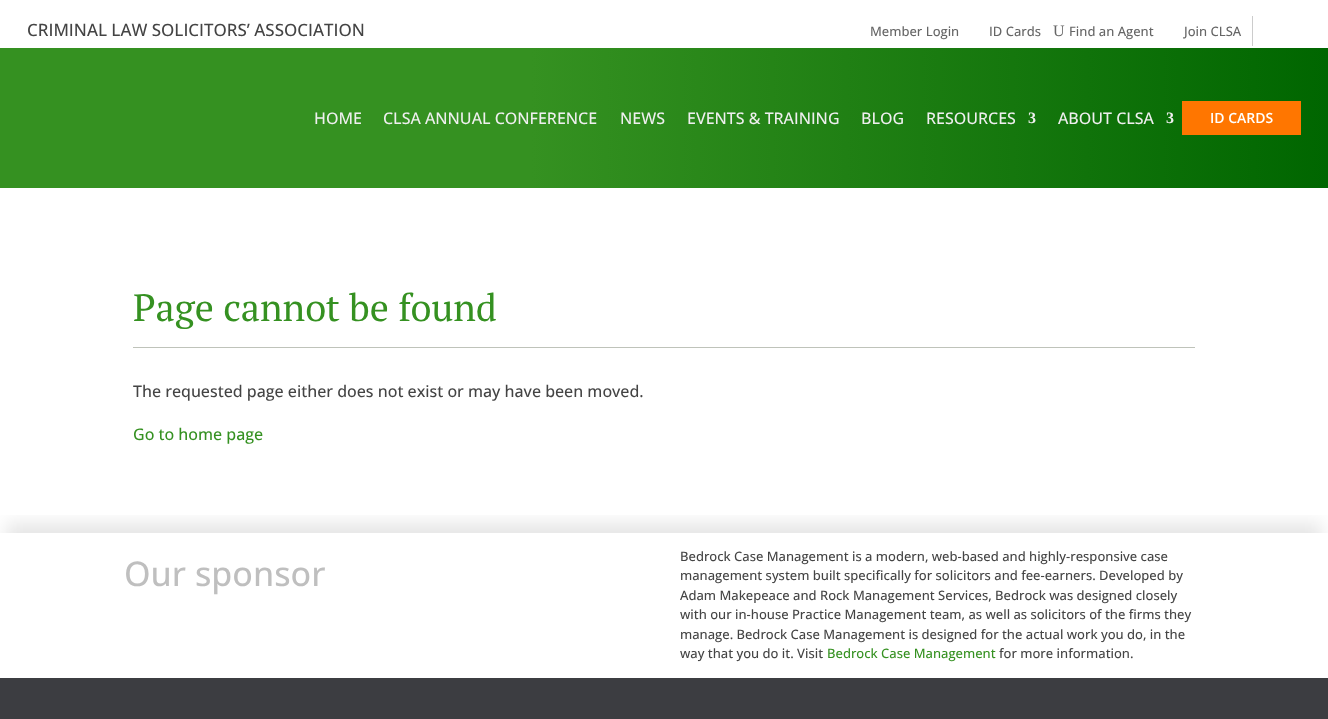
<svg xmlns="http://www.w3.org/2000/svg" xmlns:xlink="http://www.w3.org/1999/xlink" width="1328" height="719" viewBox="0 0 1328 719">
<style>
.cls-1{font:500 17px Open Sans;fill:#444444}
.cls-2{font:500 13px Open Sans;fill:#666666}
.cls-3{font:16px Liberation Serif;fill:#666666}
.cls-4{font:500 16px Open Sans;fill:#efefef}
.cls-5{font:bold 16px Liberation Serif;fill:#efefef}
.cls-6{font:600 14px Open Sans;fill:#ffffff}
.cls-7{font:38px PT Serif;fill:#359121}
.cls-8{font:500 16px Open Sans;fill:#444444}
.cls-9{font:500 16px Open Sans;fill:#359121}
.cls-10{font:500 34px Open Sans;fill:#bfbfbf}
.cls-11{font:500 13px Open Sans;fill:#444444}
.cls-12{font:500 13px Open Sans;fill:#359121}
</style>
<defs>
<linearGradient id="g1" gradientUnits="userSpaceOnUse" x1="1328" y1="118" x2="0" y2="118"><stop offset="0" stop-color="#006600"/><stop offset="0.6" stop-color="#359121"/></linearGradient>
<clipPath id="clip1"><rect x="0" y="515" width="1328" height="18"/></clipPath>
</defs>
<rect width="100%" height="100%" fill="#ffffff"/>
<rect fill="#cccccc" x="1252" y="16" width="1" height="30"/>
<rect fill="url(#g1)" x="0" y="48" width="1328" height="140"/>
<rect fill="#ff7600" x="1182" y="101" width="119" height="34"/>
<rect fill="#bfc3ba" x="133" y="347" width="1062" height="1"/>
<rect fill="#3c3d41" x="0" y="678" width="1328" height="41"/>
<g clip-path="url(#clip1)">
<rect fill="#000000" fill-opacity="0.1" filter="blur(9px)" x="6" y="523" width="1316" height="133"/>
</g>
<text class="cls-1" x="27" y="36">CRIMINAL LAW SOLICITORS’ ASSOCIATION</text>
<text class="cls-2" x="870" y="36">Member Login</text>
<text class="cls-2" x="989" y="36">ID Cards</text>
<text class="cls-3" x="1053" y="36">U</text>
<text class="cls-2" x="1069" y="36">Find an Agent</text>
<text class="cls-2" x="1184" y="36">Join CLSA</text>
<text class="cls-4" x="314" y="124">HOME</text>
<text class="cls-4" x="383" y="124">CLSA ANNUAL CONFERENCE</text>
<text class="cls-4" x="620" y="124">NEWS</text>
<text class="cls-4" x="687" y="124">EVENTS &amp; TRAINING</text>
<text class="cls-4" x="861" y="124">BLOG</text>
<text class="cls-4" x="926" y="124">RESOURCES</text>
<text class="cls-5" x="1028" y="123">3</text>
<text class="cls-4" x="1058" y="124">ABOUT CLSA</text>
<text class="cls-5" x="1166" y="123">3</text>
<text class="cls-6" x="1210" y="123">ID CARDS</text>
<text class="cls-7" x="133" y="321">Page cannot be found</text>
<text class="cls-8" x="133" y="397">The requested page either does not exist or may have been moved.</text>
<text class="cls-9" x="133" y="440">Go to home page</text>
<text class="cls-10" x="124" y="586">Our sponsor</text>
<text class="cls-11"><tspan x="680" y="561">Bedrock Case Management is a modern, web-based and highly-responsive case</tspan><tspan x="680" y="580">management system built specifically for solicitors and fee-earners. Developed by</tspan><tspan x="680" y="600">Adam Makepeace and Rock Management Services, Bedrock was designed closely</tspan><tspan x="680" y="619">with our in-house Practice Management team, as well as solicitors of the firms they</tspan><tspan x="680" y="639">manage. Bedrock Case Management is designed for the actual work you do, in the</tspan><tspan x="680" y="658">way that you do it. Visit</tspan></text>
<text class="cls-12" x="827" y="658">Bedrock Case Management</text>
<text class="cls-11" x="999" y="658">for more information.</text>
</svg>
